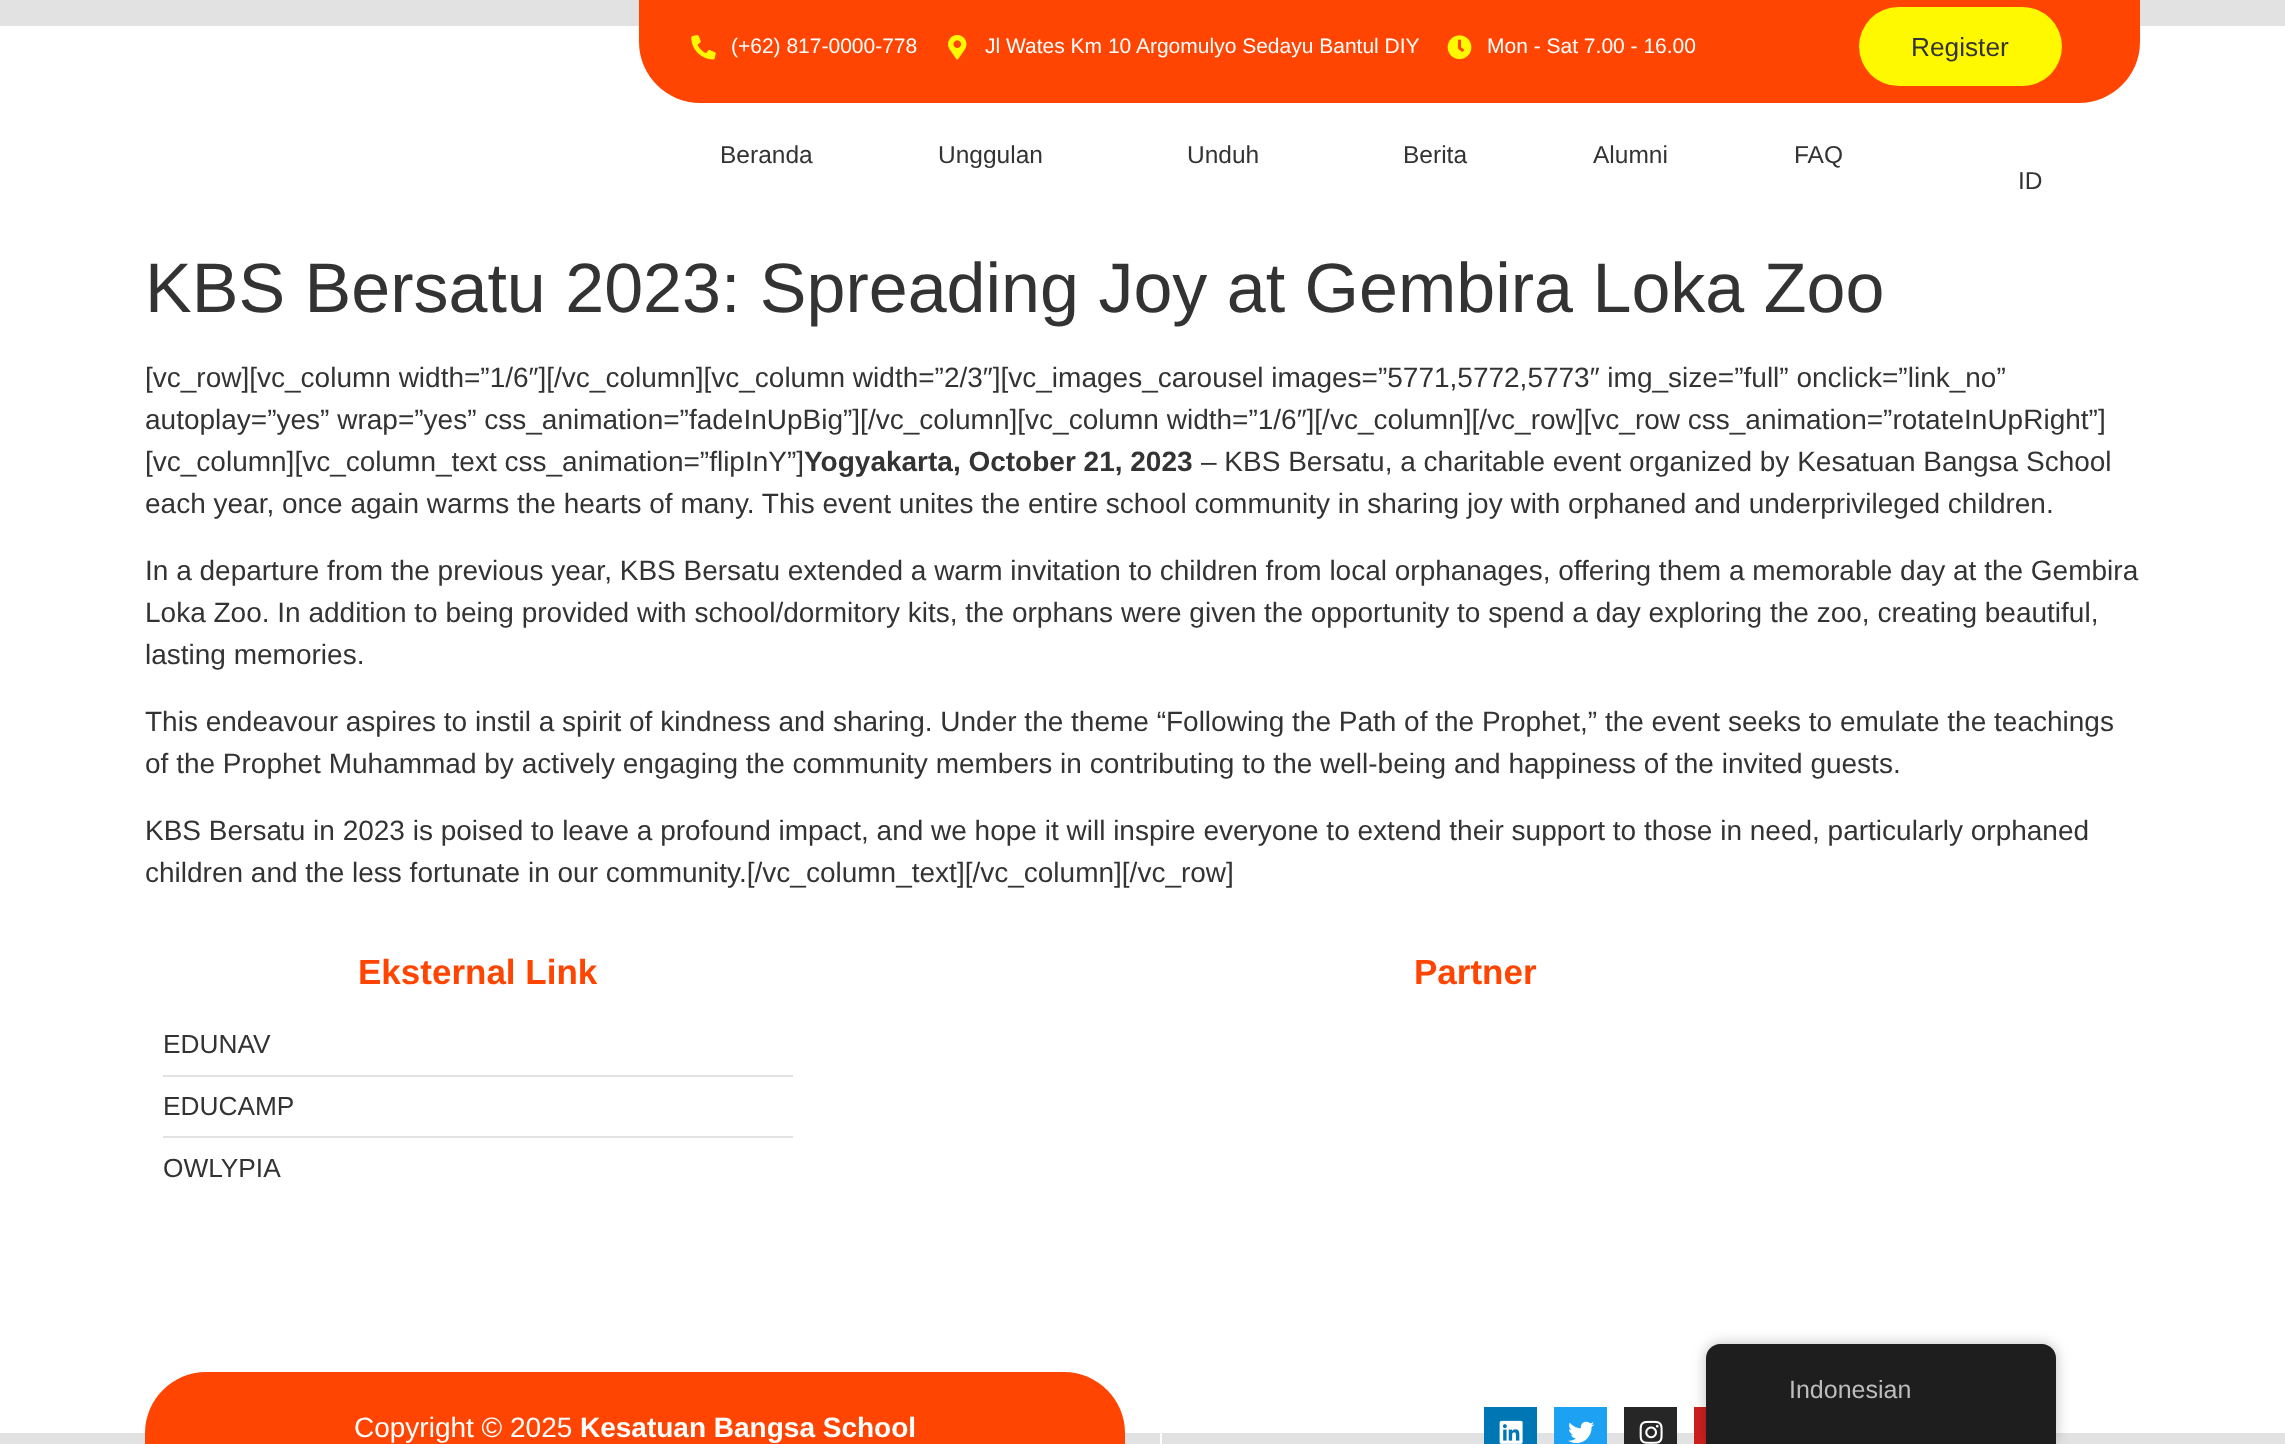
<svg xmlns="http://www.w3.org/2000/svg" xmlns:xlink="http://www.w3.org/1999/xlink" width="2285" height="1444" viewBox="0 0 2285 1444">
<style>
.cls-1{font:21px Liberation Sans;fill:#ffffff}
.cls-2{font:26.25px Liberation Sans;fill:#333333}
.cls-3{font:24.5px Liberation Sans;fill:#333333}
.cls-4{font:70px Liberation Sans;fill:#333333}
.cls-5{font:28px Liberation Sans;fill:#333333}
.cls-6{font:bold 28px Liberation Sans;fill:#333333}
.cls-7{font:bold 35px Liberation Sans;fill:#ff4501}
.cls-8{font:28px Liberation Sans;fill:#ffffff}
.cls-9{font:bold 28px Liberation Sans;fill:#ffffff}
.cls-10{font:25px Liberation Sans;fill:#bdbdbd}
</style>
<rect width="100%" height="100%" fill="#ffffff"/>
<rect fill="#e2e2e2" x="0" y="0" width="2285" height="26"/>
<path fill="#ff4501" d="M639-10H2140V42C2140 75.5 2112.5 103 2079 103H700C666.5 103 639 75.5 639 42Z"/>
<image xlink:href="image0.png" x="691" y="35" width="25" height="25"/>
<image xlink:href="image1.png" x="948" y="35" width="19" height="25"/>
<image xlink:href="image2.png" x="1447" y="35" width="25" height="25"/>
<rect fill="#fff900" x="1859" y="7" width="203" height="79" rx="39.5"/>
<rect fill="#e2e2e2" x="163" y="1075" width="630" height="2"/>
<rect fill="#e2e2e2" x="163" y="1136" width="630" height="2"/>
<rect fill="#e2e2e2" x="0" y="1433" width="2285" height="11"/>
<path fill="#ff4501" d="M206 1372H1064C1097.5 1372 1125 1399.5 1125 1433V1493H145V1433C145 1399.5 172.5 1372 206 1372Z"/>
<rect fill="#ffffff" x="1160" y="1433" width="2" height="11"/>
<rect fill="#0077b5" x="1484" y="1407" width="53" height="37"/>
<image xlink:href="image3.png" x="1499" y="1420" width="24" height="24"/>
<rect fill="#1da1f2" x="1554" y="1407" width="53" height="37"/>
<image xlink:href="image4.png" x="1568" y="1421" width="26" height="22"/>
<rect fill="#262626" x="1624" y="1407" width="53" height="37"/>
<image xlink:href="image5.png" x="1639" y="1420" width="24" height="24"/>
<rect fill="#cd201f" x="1694" y="1407" width="12" height="37"/>
<rect fill="#000000" fill-opacity="0.25" filter="blur(7px)" x="1706" y="1344" width="350" height="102" rx="14"/>
<path fill="#1e1e1e" d="M1720 1344H2042C2049.5 1344 2056 1350.5 2056 1358V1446H1706V1358C1706 1350.5 1712.5 1344 1720 1344Z"/>
<text class="cls-1" x="731" y="53">(+62) 817-0000-778</text>
<text class="cls-1" x="985" y="53">Jl Wates Km 10 Argomulyo Sedayu Bantul DIY</text>
<text class="cls-1" x="1487" y="53">Mon - Sat 7.00 - 16.00</text>
<text class="cls-2" x="1911" y="56">Register</text>
<text class="cls-3" x="720" y="163">Beranda</text>
<text class="cls-3" x="938" y="163">Unggulan</text>
<text class="cls-3" x="1187" y="163">Unduh</text>
<text class="cls-3" x="1403" y="163">Berita</text>
<text class="cls-3" x="1593" y="163">Alumni</text>
<text class="cls-3" x="1794" y="163">FAQ</text>
<text class="cls-3" x="2018" y="189">ID</text>
<text class="cls-4" x="145" y="312">KBS Bersatu 2023: Spreading Joy at Gembira Loka Zoo</text>
<text class="cls-5"><tspan x="145" y="387">[vc_row][vc_column width=”1/6″][/vc_column][vc_column width=”2/3″][vc_images_carousel images=”5771,5772,5773″ img_size=”full” onclick=”link_no”</tspan><tspan x="145" y="429">autoplay=”yes” wrap=”yes” css_animation=”fadeInUpBig”][/vc_column][vc_column width=”1/6″][/vc_column][/vc_row][vc_row css_animation=”rotateInUpRight”]</tspan><tspan x="145" y="471">[vc_column][vc_column_text css_animation=”flipInY”]</tspan></text>
<text class="cls-6" x="804" y="471">Yogyakarta, October 21, 2023</text>
<text class="cls-5" x="1201" y="471">– KBS Bersatu, a charitable event organized by Kesatuan Bangsa School</text>
<text class="cls-5" x="145" y="513">each year, once again warms the hearts of many. This event unites the entire school community in sharing joy with orphaned and underprivileged children.</text>
<text class="cls-5"><tspan x="145" y="580">In a departure from the previous year, KBS Bersatu extended a warm invitation to children from local orphanages, offering them a memorable day at the Gembira</tspan><tspan x="145" y="622">Loka Zoo. In addition to being provided with school/dormitory kits, the orphans were given the opportunity to spend a day exploring the zoo, creating beautiful,</tspan><tspan x="145" y="664">lasting memories.</tspan></text>
<text class="cls-5"><tspan x="145" y="731">This endeavour aspires to instil a spirit of kindness and sharing. Under the theme “Following the Path of the Prophet,” the event seeks to emulate the teachings</tspan><tspan x="145" y="773">of the Prophet Muhammad by actively engaging the community members in contributing to the well-being and happiness of the invited guests.</tspan></text>
<text class="cls-5"><tspan x="145" y="840">KBS Bersatu in 2023 is poised to leave a profound impact, and we hope it will inspire everyone to extend their support to those in need, particularly orphaned</tspan><tspan x="145" y="882">children and the less fortunate in our community.[/vc_column_text][/vc_column][/vc_row]</tspan></text>
<text class="cls-7" x="358" y="984">Eksternal Link</text>
<text class="cls-2" x="163" y="1053">EDUNAV</text>
<text class="cls-2" x="163" y="1115">EDUCAMP</text>
<text class="cls-2" x="163" y="1177">OWLYPIA</text>
<text class="cls-7" x="1414" y="984">Partner</text>
<text class="cls-8" x="354" y="1437">Copyright © 2025</text>
<text class="cls-9" x="580" y="1437">Kesatuan Bangsa School</text>
<text class="cls-10" x="1789" y="1398">Indonesian</text>
</svg>
